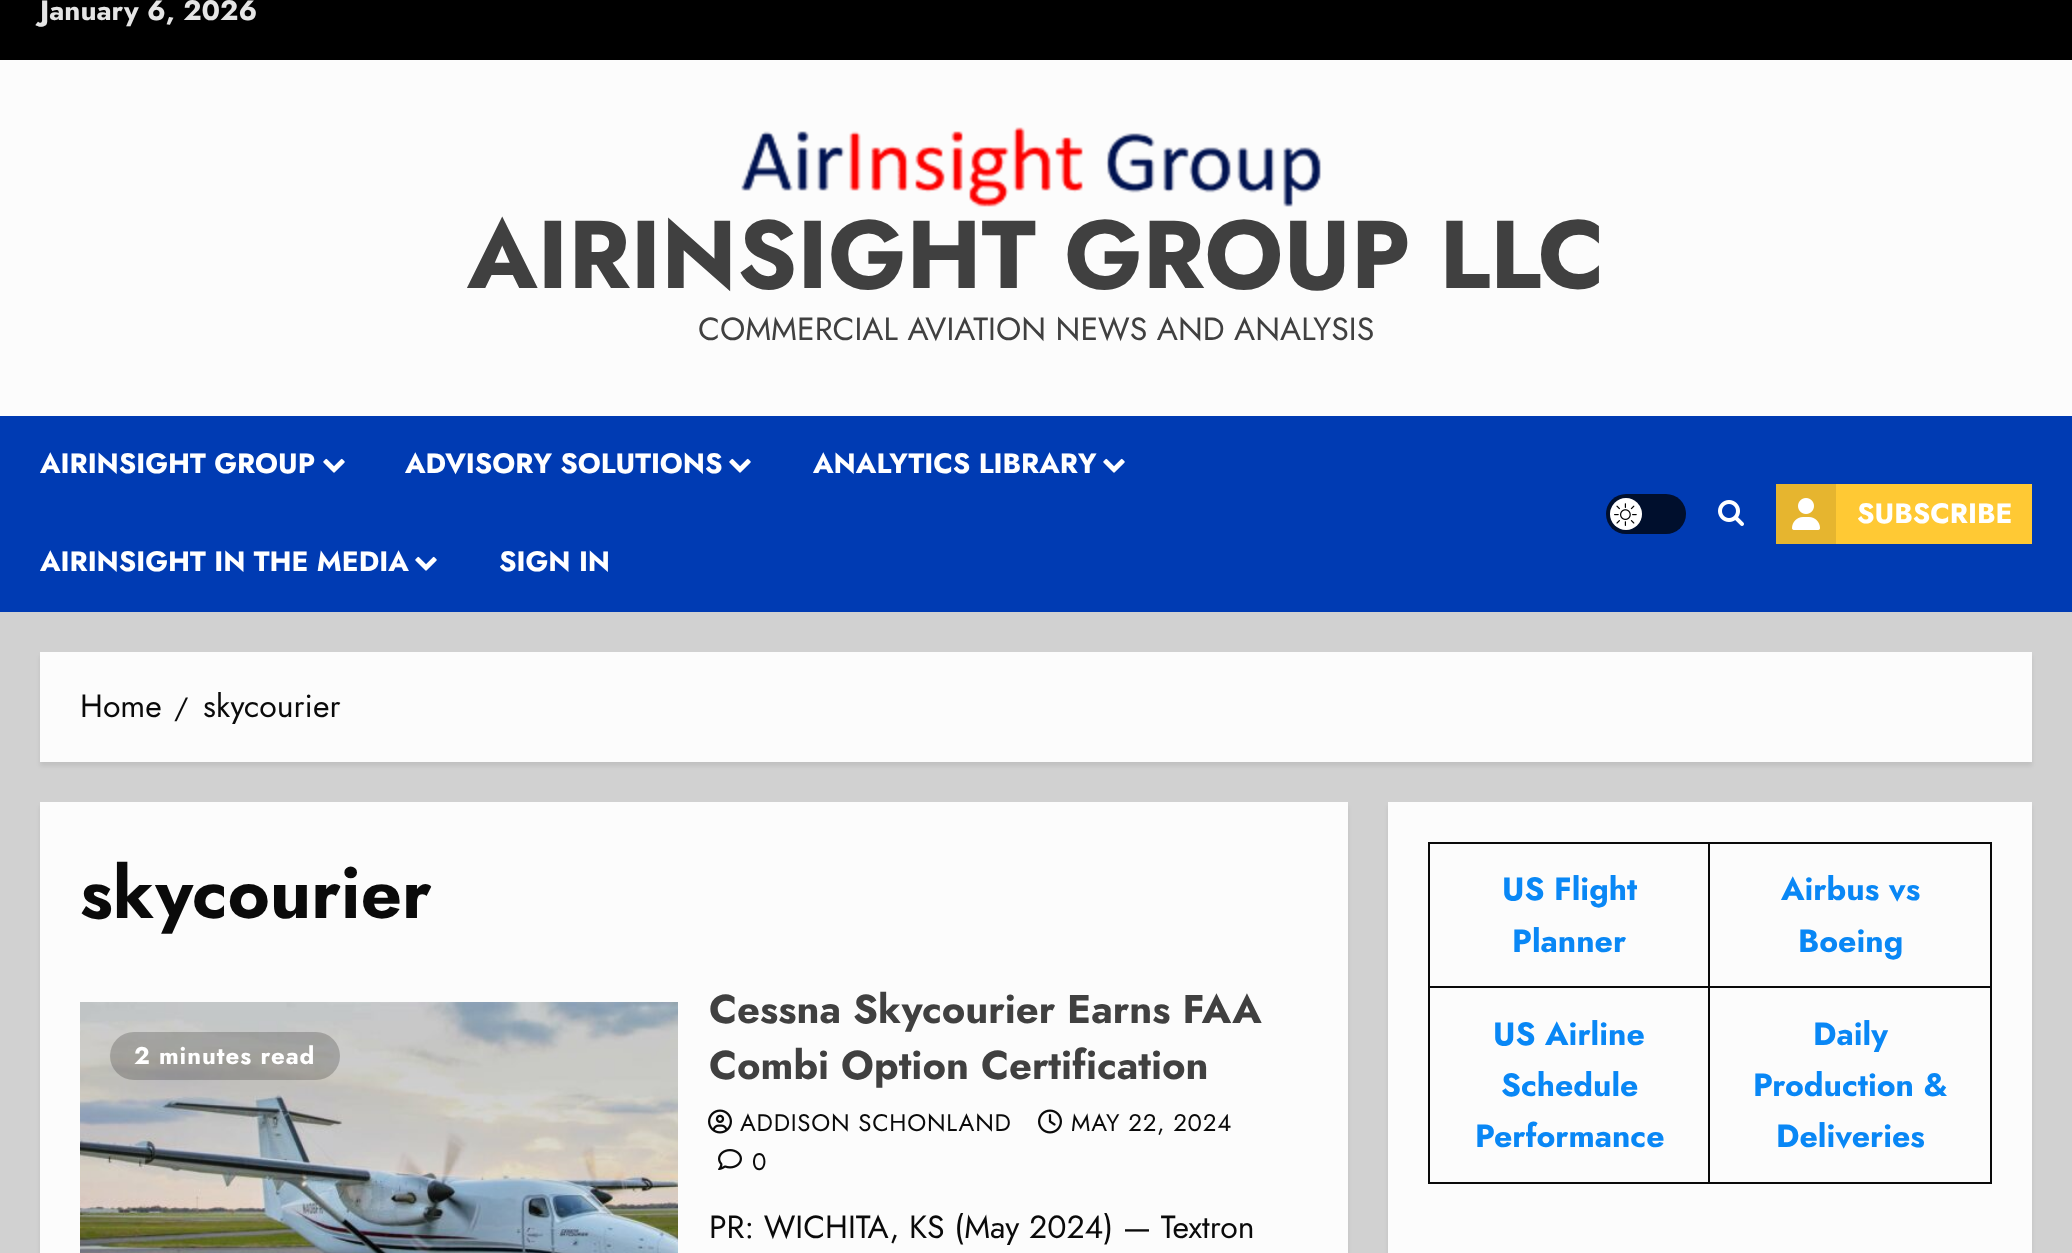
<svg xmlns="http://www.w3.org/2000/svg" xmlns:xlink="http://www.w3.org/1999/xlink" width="2072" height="1253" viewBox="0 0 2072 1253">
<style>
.cls-1{font:bold 28px Jost;fill:#e5e5e5}
.cls-2{font:bold 96px Jost;fill:#404040}
.cls-3{font:32px Jost;fill:#404040}
.cls-4{font:bold 28px Jost;fill:#ffffff}
.cls-5{font:32px Jost;fill:#0a0a0a}
.cls-6{font:28px Jost;fill:#0a0a0a}
.cls-7{font:bold 72px Jost;fill:#0a0a0a}
.cls-8{font:bold 24px Jost;letter-spacing:1px;fill:#ffffff}
.cls-9{font:bold 40px Jost;fill:#404040}
.cls-10{font:24px Jost;letter-spacing:0.75px;fill:#0a0a0a}
.cls-11{font:bold 32px Jost;fill:#0987f5}
</style>
<rect width="100%" height="100%" fill="#d1d1d1"/>
<rect fill="#000000" x="0" y="0" width="2072" height="60"/>
<rect fill="#fcfcfc" x="0" y="60" width="2072" height="356"/>
<image xlink:href="image0.png" x="741" y="127" width="580" height="80"/>
<rect fill="#003bb3" x="0" y="416" width="2072" height="196"/>
<image xlink:href="image1.png" x="323" y="458" width="22" height="15"/>
<image xlink:href="image1.png" x="729" y="458" width="22" height="15"/>
<image xlink:href="image1.png" x="1103" y="458" width="22" height="15"/>
<image xlink:href="image1.png" x="415" y="556" width="22" height="15"/>
<rect fill="#000f2d" x="1606" y="494" width="80" height="40" rx="20"/>
<circle fill="#ffffff" cx="1626" cy="514" r="16"/>
<image xlink:href="image2.png" x="1614" y="503" width="23" height="23"/>
<image xlink:href="image3.png" x="1718" y="500" width="26" height="26"/>
<rect fill="#ffc934" x="1836" y="484" width="196" height="60"/>
<rect fill="#e6b52f" x="1776" y="484" width="60" height="60"/>
<image xlink:href="image4.png" x="1792" y="498" width="28" height="32"/>
<rect fill="#000000" fill-opacity="0.08" filter="blur(2px)" x="40" y="656" width="1992" height="110"/>
<rect fill="#fcfcfc" x="40" y="652" width="1992" height="110"/>
<rect fill="#000000" fill-opacity="0.08" filter="blur(2px)" x="40" y="806" width="1308" height="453"/>
<rect fill="#fcfcfc" x="40" y="802" width="1308" height="451"/>
<image xlink:href="image5.png" x="80" y="1002" width="598" height="251"/>
<rect fill="#000000" fill-opacity="0.2" x="110" y="1032" width="230" height="48" rx="24"/>
<image xlink:href="image6.png" x="708" y="1109" width="24" height="25"/>
<image xlink:href="image7.png" x="1038" y="1109" width="24" height="25"/>
<image xlink:href="image8.png" x="718" y="1149" width="24" height="21"/>
<rect fill="#000000" fill-opacity="0.08" filter="blur(2px)" x="1388" y="806" width="644" height="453"/>
<rect fill="#fcfcfc" x="1388" y="802" width="644" height="451"/>
<rect fill="#0a0a0a" x="1708" y="842" width="284" height="2"/>
<rect fill="#0a0a0a" x="1708" y="986" width="284" height="2"/>
<rect fill="#0a0a0a" x="1990" y="986" width="2" height="198"/>
<rect fill="#0a0a0a" x="1708" y="1182" width="284" height="2"/>
<rect fill="#0a0a0a" x="1708" y="986" width="2" height="198"/>
<rect fill="#0a0a0a" x="1428" y="986" width="282" height="2"/>
<rect fill="#0a0a0a" x="1708" y="842" width="2" height="146"/>
<rect fill="#0a0a0a" x="1428" y="842" width="282" height="2"/>
<rect fill="#0a0a0a" x="1428" y="1182" width="282" height="2"/>
<rect fill="#0a0a0a" x="1428" y="986" width="2" height="198"/>
<rect fill="#0a0a0a" x="1428" y="842" width="2" height="146"/>
<rect fill="#0a0a0a" x="1990" y="842" width="2" height="146"/>
<text class="cls-1" x="40" y="20">January 6, 2026</text>
<text class="cls-2" x="467" y="288">AIRINSIGHT GROUP LLC</text>
<text class="cls-3" x="698" y="340">COMMERCIAL AVIATION NEWS AND ANALYSIS</text>
<text class="cls-4" x="40" y="473">AIRINSIGHT GROUP</text>
<text class="cls-4" x="405" y="473">ADVISORY SOLUTIONS</text>
<text class="cls-4" x="813" y="473">ANALYTICS LIBRARY</text>
<text class="cls-4" x="40" y="571">AIRINSIGHT IN THE MEDIA</text>
<text class="cls-4" x="499" y="571">SIGN IN</text>
<text class="cls-4" x="1857" y="523">SUBSCRIBE</text>
<text class="cls-5" x="80" y="717">Home</text>
<text class="cls-6" x="174" y="717">/</text>
<text class="cls-5" x="203" y="717">skycourier</text>
<text class="cls-7" x="80" y="918">skycourier</text>
<text class="cls-8" x="134" y="1064">2 minutes read</text>
<text class="cls-9"><tspan x="709" y="1023">Cessna Skycourier Earns FAA</tspan><tspan x="709" y="1079">Combi Option Certification</tspan></text>
<text class="cls-10" x="740" y="1131">ADDISON SCHONLAND</text>
<text class="cls-10" x="1071" y="1131">MAY 22, 2024</text>
<text class="cls-10" x="752" y="1170">0</text>
<text class="cls-5" x="709" y="1238">PR: WICHITA, KS (May 2024) — Textron</text>
<text class="cls-11" x="1502" y="900">US Flight</text>
<text class="cls-11" x="1512" y="952">Planner</text>
<text class="cls-11" x="1781" y="900">Airbus vs</text>
<text class="cls-11" x="1798" y="952">Boeing</text>
<text class="cls-11" x="1493" y="1045">US Airline</text>
<text class="cls-11" x="1501" y="1096">Schedule</text>
<text class="cls-11" x="1475" y="1147">Performance</text>
<text class="cls-11" x="1813" y="1045">Daily</text>
<text class="cls-11" x="1753" y="1096">Production &amp;</text>
<text class="cls-11" x="1776" y="1147">Deliveries</text>
</svg>
